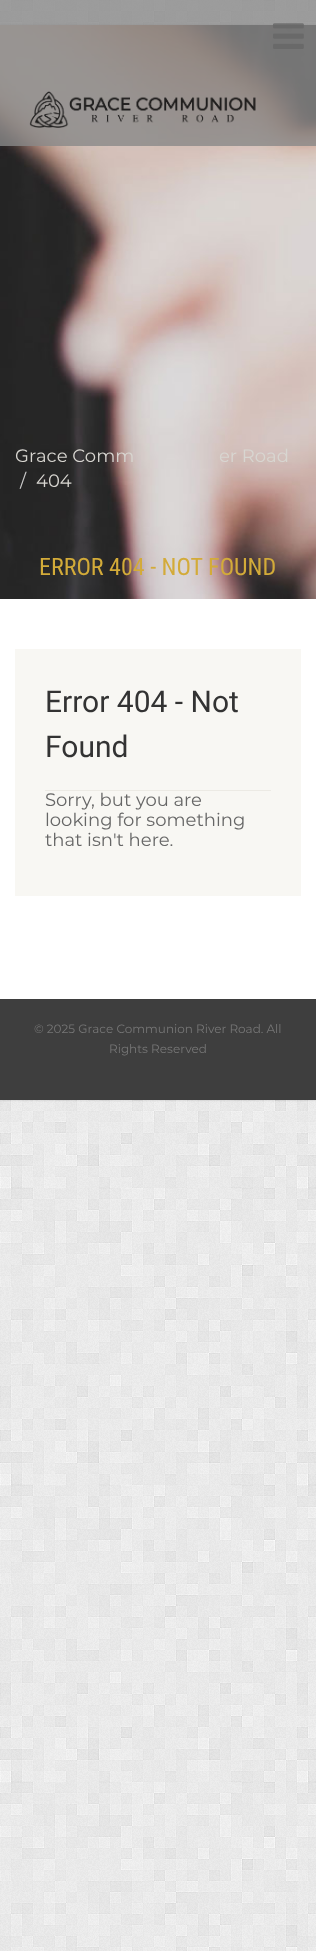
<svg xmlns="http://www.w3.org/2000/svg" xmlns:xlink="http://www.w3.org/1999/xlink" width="316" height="1951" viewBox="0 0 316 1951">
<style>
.cls-1{font:18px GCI;fill:#d8d6d1}
.cls-2{font:18px GCI;fill:#cccccc}
.cls-3{font:24px Roboto Condensed;fill:#d3ab39}
.cls-4{font:30px Roboto;fill:#333333}
.cls-5{font:18px GCI;fill:#666666}
.cls-6{font:12px GCI;fill:#767676}
</style>
<rect width="100%" height="100%" fill="#ffffff"/>
<image xlink:href="image0.png" x="0" y="0" width="316" height="1951"/>
<rect fill="#000000" fill-opacity="0.2" filter="blur(1px)" x="0" y="25" width="316" height="1075"/>
<rect fill="#ffffff" x="0" y="599" width="316" height="400"/>
<image xlink:href="image3.png" x="0" y="25" width="316" height="574"/>
<rect fill="#888888" fill-opacity="0.8" x="0" y="0" width="316" height="146"/>
<image xlink:href="image1.png" x="273" y="23" width="31" height="26"/>
<image xlink:href="image2.png" x="29" y="91" width="227" height="37"/>
<rect fill="#f8f7f3" x="15" y="649" width="286" height="247"/>
<rect fill="#eceae4" x="45" y="790" width="226" height="1"/>
<rect fill="#3e3e3e" x="0" y="999" width="316" height="101"/>
<text class="cls-1" x="15" y="462">Grace Comm</text>
<text class="cls-1" x="219" y="462">er Road</text>
<text class="cls-2" x="20" y="487">/</text>
<text class="cls-1" x="36" y="487">404</text>
<text class="cls-3" x="39" y="575">ERROR 404 - NOT FOUND</text>
<text class="cls-4"><tspan x="45" y="712">Error 404 - Not</tspan><tspan x="45" y="757">Found</tspan></text>
<text class="cls-5"><tspan x="45" y="806">Sorry, but you are</tspan><tspan x="45" y="826">looking for something</tspan><tspan x="45" y="846">that isn't here.</tspan></text>
<text class="cls-6" x="34" y="1033">© 2025 Grace Communion River Road. All</text>
<text class="cls-6" x="109" y="1053">Rights Reserved</text>
</svg>
